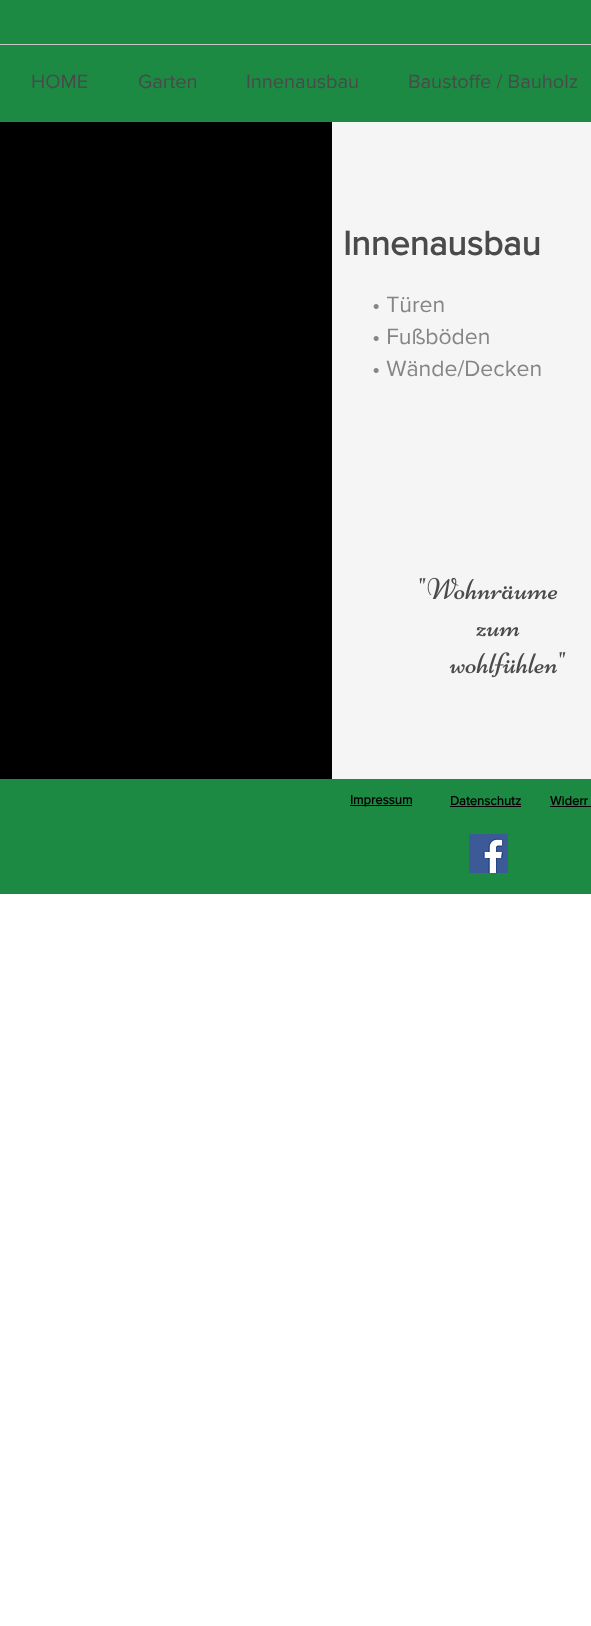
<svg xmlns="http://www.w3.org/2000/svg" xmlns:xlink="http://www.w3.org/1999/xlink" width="591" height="1626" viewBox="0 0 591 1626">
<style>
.cls-1{font:20px 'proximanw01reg';fill:#4a4a4a}
.cls-2{font:bold 35px 'proximanw01reg';fill:#4a4a4a}
.cls-3{font:23px 'proximanw01reg';fill:#858583}
.cls-4{font:bold 13px 'proximanw01reg';fill:#000000}
</style>
<rect width="100%" height="100%" fill="#ffffff"/>
<rect fill="#1c8a43" x="0" y="0" width="591" height="122"/>
<rect fill="#c7c7c7" x="0" y="44" width="591" height="1"/>
<rect fill="#000000" x="0" y="122" width="332" height="657"/>
<rect fill="#f5f5f5" x="332" y="122" width="259" height="657"/>
<image xlink:href="image0.png" x="419" y="577" width="139" height="23"/>
<image xlink:href="image1.png" x="476" y="627" width="44" height="10"/>
<image xlink:href="image2.png" x="449" y="652" width="117" height="26"/>
<rect fill="#1c8a43" x="0" y="779" width="591" height="115"/>
<rect fill="#000000" x="350" y="805" width="62" height="1"/>
<rect fill="#000000" x="450" y="806" width="71" height="1"/>
<rect fill="#000000" x="550" y="806" width="41" height="1"/>
<image xlink:href="image3.png" x="469" y="834" width="39" height="39"/>
<text class="cls-1" x="31" y="88">HOME</text>
<text class="cls-1" x="138" y="88">Garten</text>
<text class="cls-1" x="246" y="88">Innenausbau</text>
<text class="cls-1" x="408" y="88">Baustoffe / Bauholz</text>
<text class="cls-2" x="343" y="255">Innenausbau</text>
<text class="cls-3"><tspan x="372" y="312">• Türen</tspan><tspan x="372" y="344">• Fußböden</tspan><tspan x="372" y="376">• Wände/Decken</tspan></text>
<text class="cls-4" x="350" y="804">Impressum</text>
<text class="cls-4" x="450" y="805">Datenschutz</text>
<text class="cls-4" x="550" y="805">Widerr</text>
</svg>
